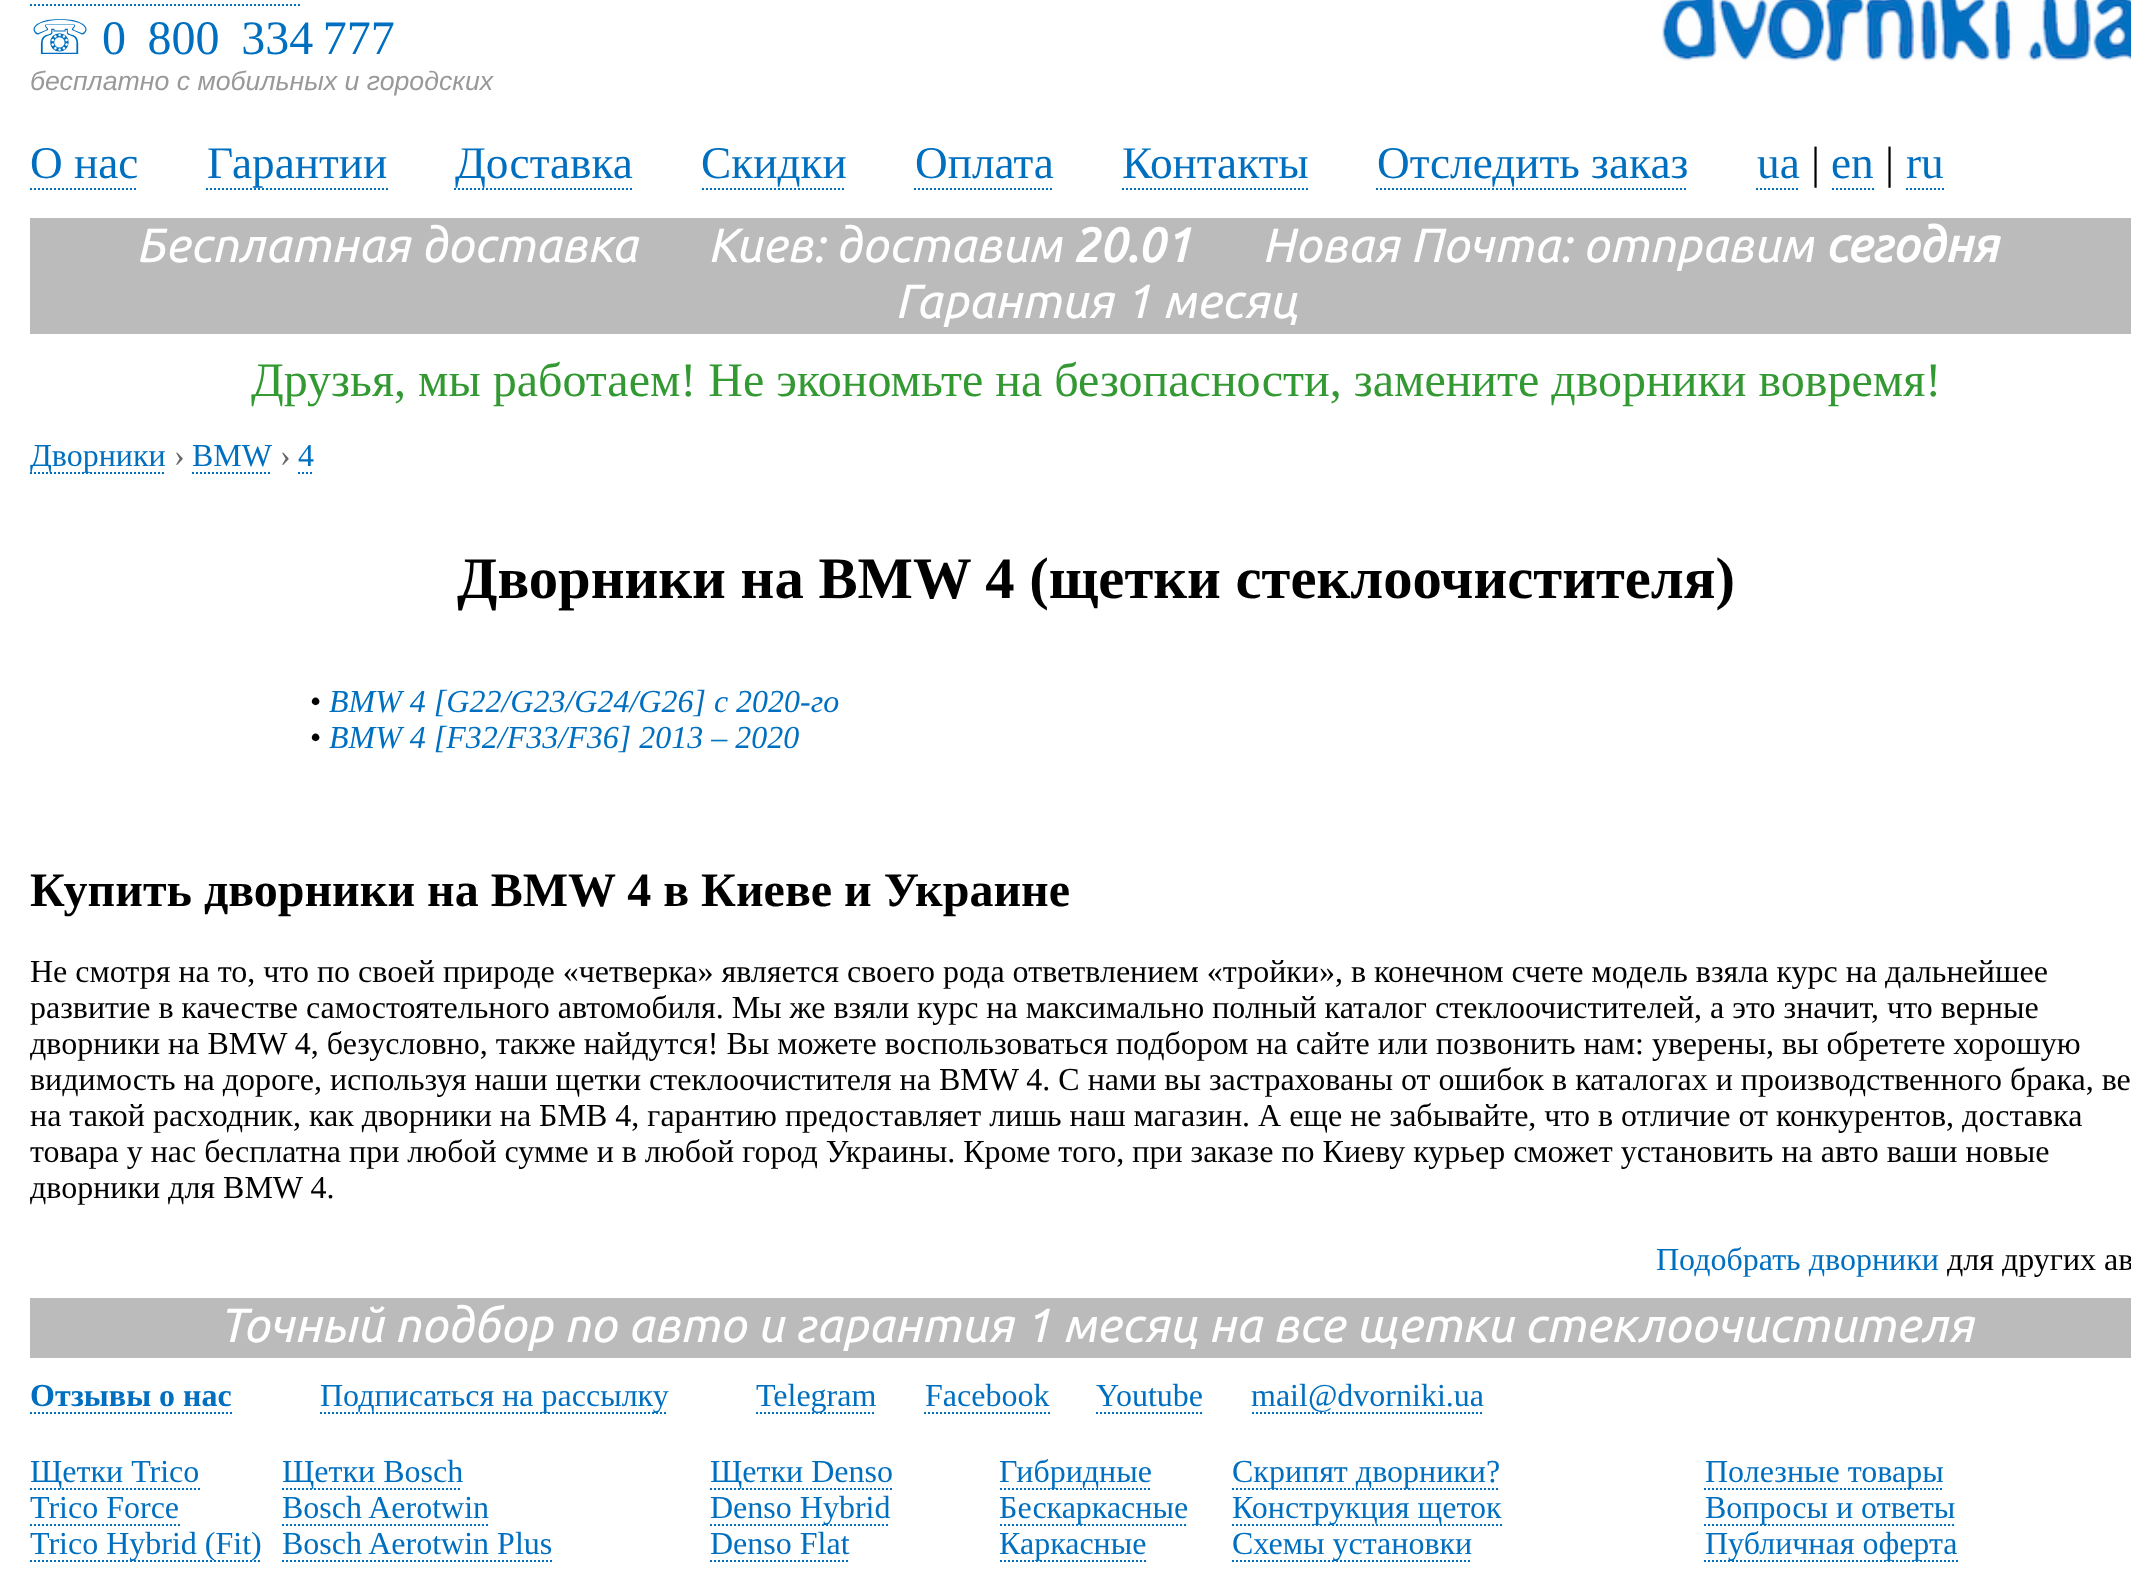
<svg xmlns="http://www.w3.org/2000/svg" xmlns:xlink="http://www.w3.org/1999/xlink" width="2131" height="1576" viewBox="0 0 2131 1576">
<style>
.cls-1{font:48px DejaVu Sans;fill:#006fbf}
.cls-2{font:48px Liberation Serif;fill:#006fbf}
.cls-3{font:italic 26.7px Liberation Sans;fill:#999999}
.cls-4{font:45.25px Liberation Serif;fill:#006fbf}
.cls-5{font:45.25px Liberation Serif;fill:#000000}
.cls-6{font:italic 48px Ubuntu;fill:#ffffff}
.cls-7{font:italic bold 48px Ubuntu;fill:#ffffff}
.cls-8{font:48px Liberation Serif;fill:#339933}
.cls-9{font:32px Liberation Serif;fill:#006fbf}
.cls-10{font:32px Liberation Serif;fill:#666666}
.cls-11{font:bold 58.7px Liberation Serif;fill:#000000}
.cls-12{font:32px Liberation Serif;fill:#000000}
.cls-13{font:italic 32px Liberation Serif;fill:#006fbf}
.cls-14{font:bold 48px Liberation Serif;fill:#000000}
.cls-15{font:bold 32px Liberation Serif;fill:#006fbf}
</style>
<rect width="100%" height="100%" fill="#ffffff"/>
<path fill="none" stroke="#006fbf" stroke-width="2" stroke-dasharray="2 2" d="M30 5H300"/>
<image xlink:href="image0.png" x="1662" y="0" width="469" height="62"/>
<path fill="none" stroke="#006fbf" stroke-width="2" stroke-dasharray="2 2" d="M30 189H138"/>
<path fill="none" stroke="#006fbf" stroke-width="2" stroke-dasharray="2 2" d="M206 189H388"/>
<path fill="none" stroke="#006fbf" stroke-width="2" stroke-dasharray="2 2" d="M454 189H634"/>
<path fill="none" stroke="#006fbf" stroke-width="2" stroke-dasharray="2 2" d="M702 189H846"/>
<path fill="none" stroke="#006fbf" stroke-width="2" stroke-dasharray="2 2" d="M914 189H1054"/>
<path fill="none" stroke="#006fbf" stroke-width="2" stroke-dasharray="2 2" d="M1122 189H1308"/>
<path fill="none" stroke="#006fbf" stroke-width="2" stroke-dasharray="2 2" d="M1376 189H1688"/>
<path fill="none" stroke="#006fbf" stroke-width="2" stroke-dasharray="2 2" d="M1756 189H1800"/>
<path fill="none" stroke="#006fbf" stroke-width="2" stroke-dasharray="2 2" d="M1832 189H1874"/>
<path fill="none" stroke="#006fbf" stroke-width="2" stroke-dasharray="2 2" d="M1906 189H1944"/>
<rect fill="#bbbbbb" x="30" y="218" width="2101" height="116"/>
<path fill="none" stroke="#006fbf" stroke-width="2" stroke-dasharray="2 2" d="M30 473H166"/>
<path fill="none" stroke="#006fbf" stroke-width="2" stroke-dasharray="2 2" d="M192 473H272"/>
<path fill="none" stroke="#006fbf" stroke-width="2" stroke-dasharray="2 2" d="M298 473H314"/>
<rect fill="#bbbbbb" x="30" y="1298" width="2101" height="60"/>
<path fill="none" stroke="#006fbf" stroke-width="2" stroke-dasharray="2 2" d="M30 1413H232"/>
<path fill="none" stroke="#006fbf" stroke-width="2" stroke-dasharray="2 2" d="M320 1413H668"/>
<path fill="none" stroke="#006fbf" stroke-width="2" stroke-dasharray="2 2" d="M756 1413H876"/>
<path fill="none" stroke="#006fbf" stroke-width="2" stroke-dasharray="2 2" d="M924 1413H1050"/>
<path fill="none" stroke="#006fbf" stroke-width="2" stroke-dasharray="2 2" d="M1096 1413H1204"/>
<path fill="none" stroke="#006fbf" stroke-width="2" stroke-dasharray="2 2" d="M1252 1413H1484"/>
<path fill="none" stroke="#006fbf" stroke-width="2" stroke-dasharray="2 2" d="M30 1489H200"/>
<path fill="none" stroke="#006fbf" stroke-width="2" stroke-dasharray="2 2" d="M30 1525H180"/>
<path fill="none" stroke="#006fbf" stroke-width="2" stroke-dasharray="2 2" d="M30 1561H262"/>
<path fill="none" stroke="#006fbf" stroke-width="2" stroke-dasharray="2 2" d="M282 1489H462"/>
<path fill="none" stroke="#006fbf" stroke-width="2" stroke-dasharray="2 2" d="M282 1525H488"/>
<path fill="none" stroke="#006fbf" stroke-width="2" stroke-dasharray="2 2" d="M282 1561H552"/>
<path fill="none" stroke="#006fbf" stroke-width="2" stroke-dasharray="2 2" d="M710 1489H892"/>
<path fill="none" stroke="#006fbf" stroke-width="2" stroke-dasharray="2 2" d="M710 1525H890"/>
<path fill="none" stroke="#006fbf" stroke-width="2" stroke-dasharray="2 2" d="M710 1561H850"/>
<path fill="none" stroke="#006fbf" stroke-width="2" stroke-dasharray="2 2" d="M1000 1489H1152"/>
<path fill="none" stroke="#006fbf" stroke-width="2" stroke-dasharray="2 2" d="M1000 1525H1188"/>
<path fill="none" stroke="#006fbf" stroke-width="2" stroke-dasharray="2 2" d="M1000 1561H1146"/>
<path fill="none" stroke="#006fbf" stroke-width="2" stroke-dasharray="2 2" d="M1232 1489H1500"/>
<path fill="none" stroke="#006fbf" stroke-width="2" stroke-dasharray="2 2" d="M1232 1525H1502"/>
<path fill="none" stroke="#006fbf" stroke-width="2" stroke-dasharray="2 2" d="M1232 1561H1472"/>
<path fill="none" stroke="#006fbf" stroke-width="2" stroke-dasharray="2 2" d="M1704 1489H1944"/>
<path fill="none" stroke="#006fbf" stroke-width="2" stroke-dasharray="2 2" d="M1704 1525H1954"/>
<path fill="none" stroke="#006fbf" stroke-width="2" stroke-dasharray="2 2" d="M1704 1561H1958"/>
<text class="cls-1" x="30" y="54">☏</text>
<text class="cls-2" x="102" y="54">0  800  334 777</text>
<text class="cls-3" x="30" y="90">бесплатно с мобильных и городских</text>
<text class="cls-4" x="30" y="178">О нас</text>
<text class="cls-4" x="207" y="178">Гарантии</text>
<text class="cls-4" x="455" y="178">Доставка</text>
<text class="cls-4" x="701" y="178">Скидки</text>
<text class="cls-4" x="915" y="178">Оплата</text>
<text class="cls-4" x="1122" y="178">Контакты</text>
<text class="cls-4" x="1377" y="178">Отследить заказ</text>
<text class="cls-4" x="1757" y="178">ua</text>
<text class="cls-5" x="1811" y="178">|</text>
<text class="cls-4" x="1831" y="178">en</text>
<text class="cls-5" x="1885" y="178">|</text>
<text class="cls-4" x="1906" y="178">ru</text>
<text class="cls-6" x="136" y="262">Бесплатная доставка   Киев: доставим</text>
<text class="cls-7" x="1072" y="262">20.01</text>
<text class="cls-6" x="1262" y="262">Новая Почта: отправим</text>
<text class="cls-7" x="1825" y="262">сегодня</text>
<text class="cls-6" x="895" y="318">Гарантия 1 месяц</text>
<text class="cls-8" x="251" y="396">Друзья, мы работаем! Не экономьте на безопасности, замените дворники вовремя!</text>
<text class="cls-9" x="30" y="466">Дворники</text>
<text class="cls-10" x="174" y="466">›</text>
<text class="cls-9" x="192" y="466">BMW</text>
<text class="cls-10" x="280" y="466">›</text>
<text class="cls-9" x="298" y="466">4</text>
<text class="cls-11" x="457" y="598">Дворники на BMW 4 (щетки стеклоочистителя)</text>
<text class="cls-12" x="310" y="712">•</text>
<text class="cls-13" x="329" y="712">BMW 4 [G22/G23/G24/G26] с 2020-го</text>
<text class="cls-12" x="310" y="748">•</text>
<text class="cls-13" x="329" y="748">BMW 4 [F32/F33/F36] 2013 – 2020</text>
<text class="cls-14" x="30" y="906">Купить дворники на BMW 4 в Киеве и Украине</text>
<text class="cls-12"><tspan x="30" y="982">Не смотря на то, что по своей природе «четверка» является своего рода ответвлением «тройки», в конечном счете модель взяла курс на дальнейшее</tspan><tspan x="30" y="1018">развитие в качестве самостоятельного автомобиля. Мы же взяли курс на максимально полный каталог стеклоочистителей, а это значит, что верные</tspan><tspan x="30" y="1054">дворники на BMW 4, безусловно, также найдутся! Вы можете воспользоваться подбором на сайте или позвонить нам: уверены, вы обретете хорошую</tspan><tspan x="30" y="1090">видимость на дороге, используя наши щетки стеклоочистителя на BMW 4. С нами вы застрахованы от ошибок в каталогах и производственного брака, ве</tspan><tspan x="30" y="1126">на такой расходник, как дворники на БМВ 4, гарантию предоставляет лишь наш магазин. А еще не забывайте, что в отличие от конкурентов, доставка</tspan><tspan x="30" y="1162">товара у нас бесплатна при любой сумме и в любой город Украины. Кроме того, при заказе по Киеву курьер сможет установить на авто ваши новые</tspan><tspan x="30" y="1198">дворники для BMW 4.</tspan></text>
<text class="cls-9" x="1656" y="1270">Подобрать дворники</text>
<text class="cls-12" x="1947" y="1270">для других ав</text>
<text class="cls-6" x="219" y="1342">Точный подбор по авто и гарантия 1 месяц на все щетки стеклоочистителя</text>
<text class="cls-15" x="30" y="1406">Отзывы о нас</text>
<text class="cls-9" x="320" y="1406">Подписаться на рассылку</text>
<text class="cls-9" x="756" y="1406">Telegram</text>
<text class="cls-9" x="925" y="1406">Facebook</text>
<text class="cls-9" x="1096" y="1406">Youtube</text>
<text class="cls-9" x="1251" y="1406">mail@dvorniki.ua</text>
<text class="cls-9"><tspan x="30" y="1482">Щетки Trico</tspan><tspan x="30" y="1518">Trico Force</tspan><tspan x="30" y="1554">Trico Hybrid (Fit)</tspan></text>
<text class="cls-9"><tspan x="282" y="1482">Щетки Bosch</tspan><tspan x="282" y="1518">Bosch Aerotwin</tspan><tspan x="282" y="1554">Bosch Aerotwin Plus</tspan></text>
<text class="cls-9"><tspan x="710" y="1482">Щетки Denso</tspan><tspan x="710" y="1518">Denso Hybrid</tspan><tspan x="710" y="1554">Denso Flat</tspan></text>
<text class="cls-9"><tspan x="999" y="1482">Гибридные</tspan><tspan x="999" y="1518">Бескаркасные</tspan><tspan x="999" y="1554">Каркасные</tspan></text>
<text class="cls-9"><tspan x="1232" y="1482">Скрипят дворники?</tspan><tspan x="1232" y="1518">Конструкция щеток</tspan><tspan x="1232" y="1554">Схемы установки</tspan></text>
<text class="cls-9"><tspan x="1705" y="1482">Полезные товары</tspan><tspan x="1705" y="1518">Вопросы и ответы</tspan><tspan x="1705" y="1554">Публичная оферта</tspan></text>
</svg>
